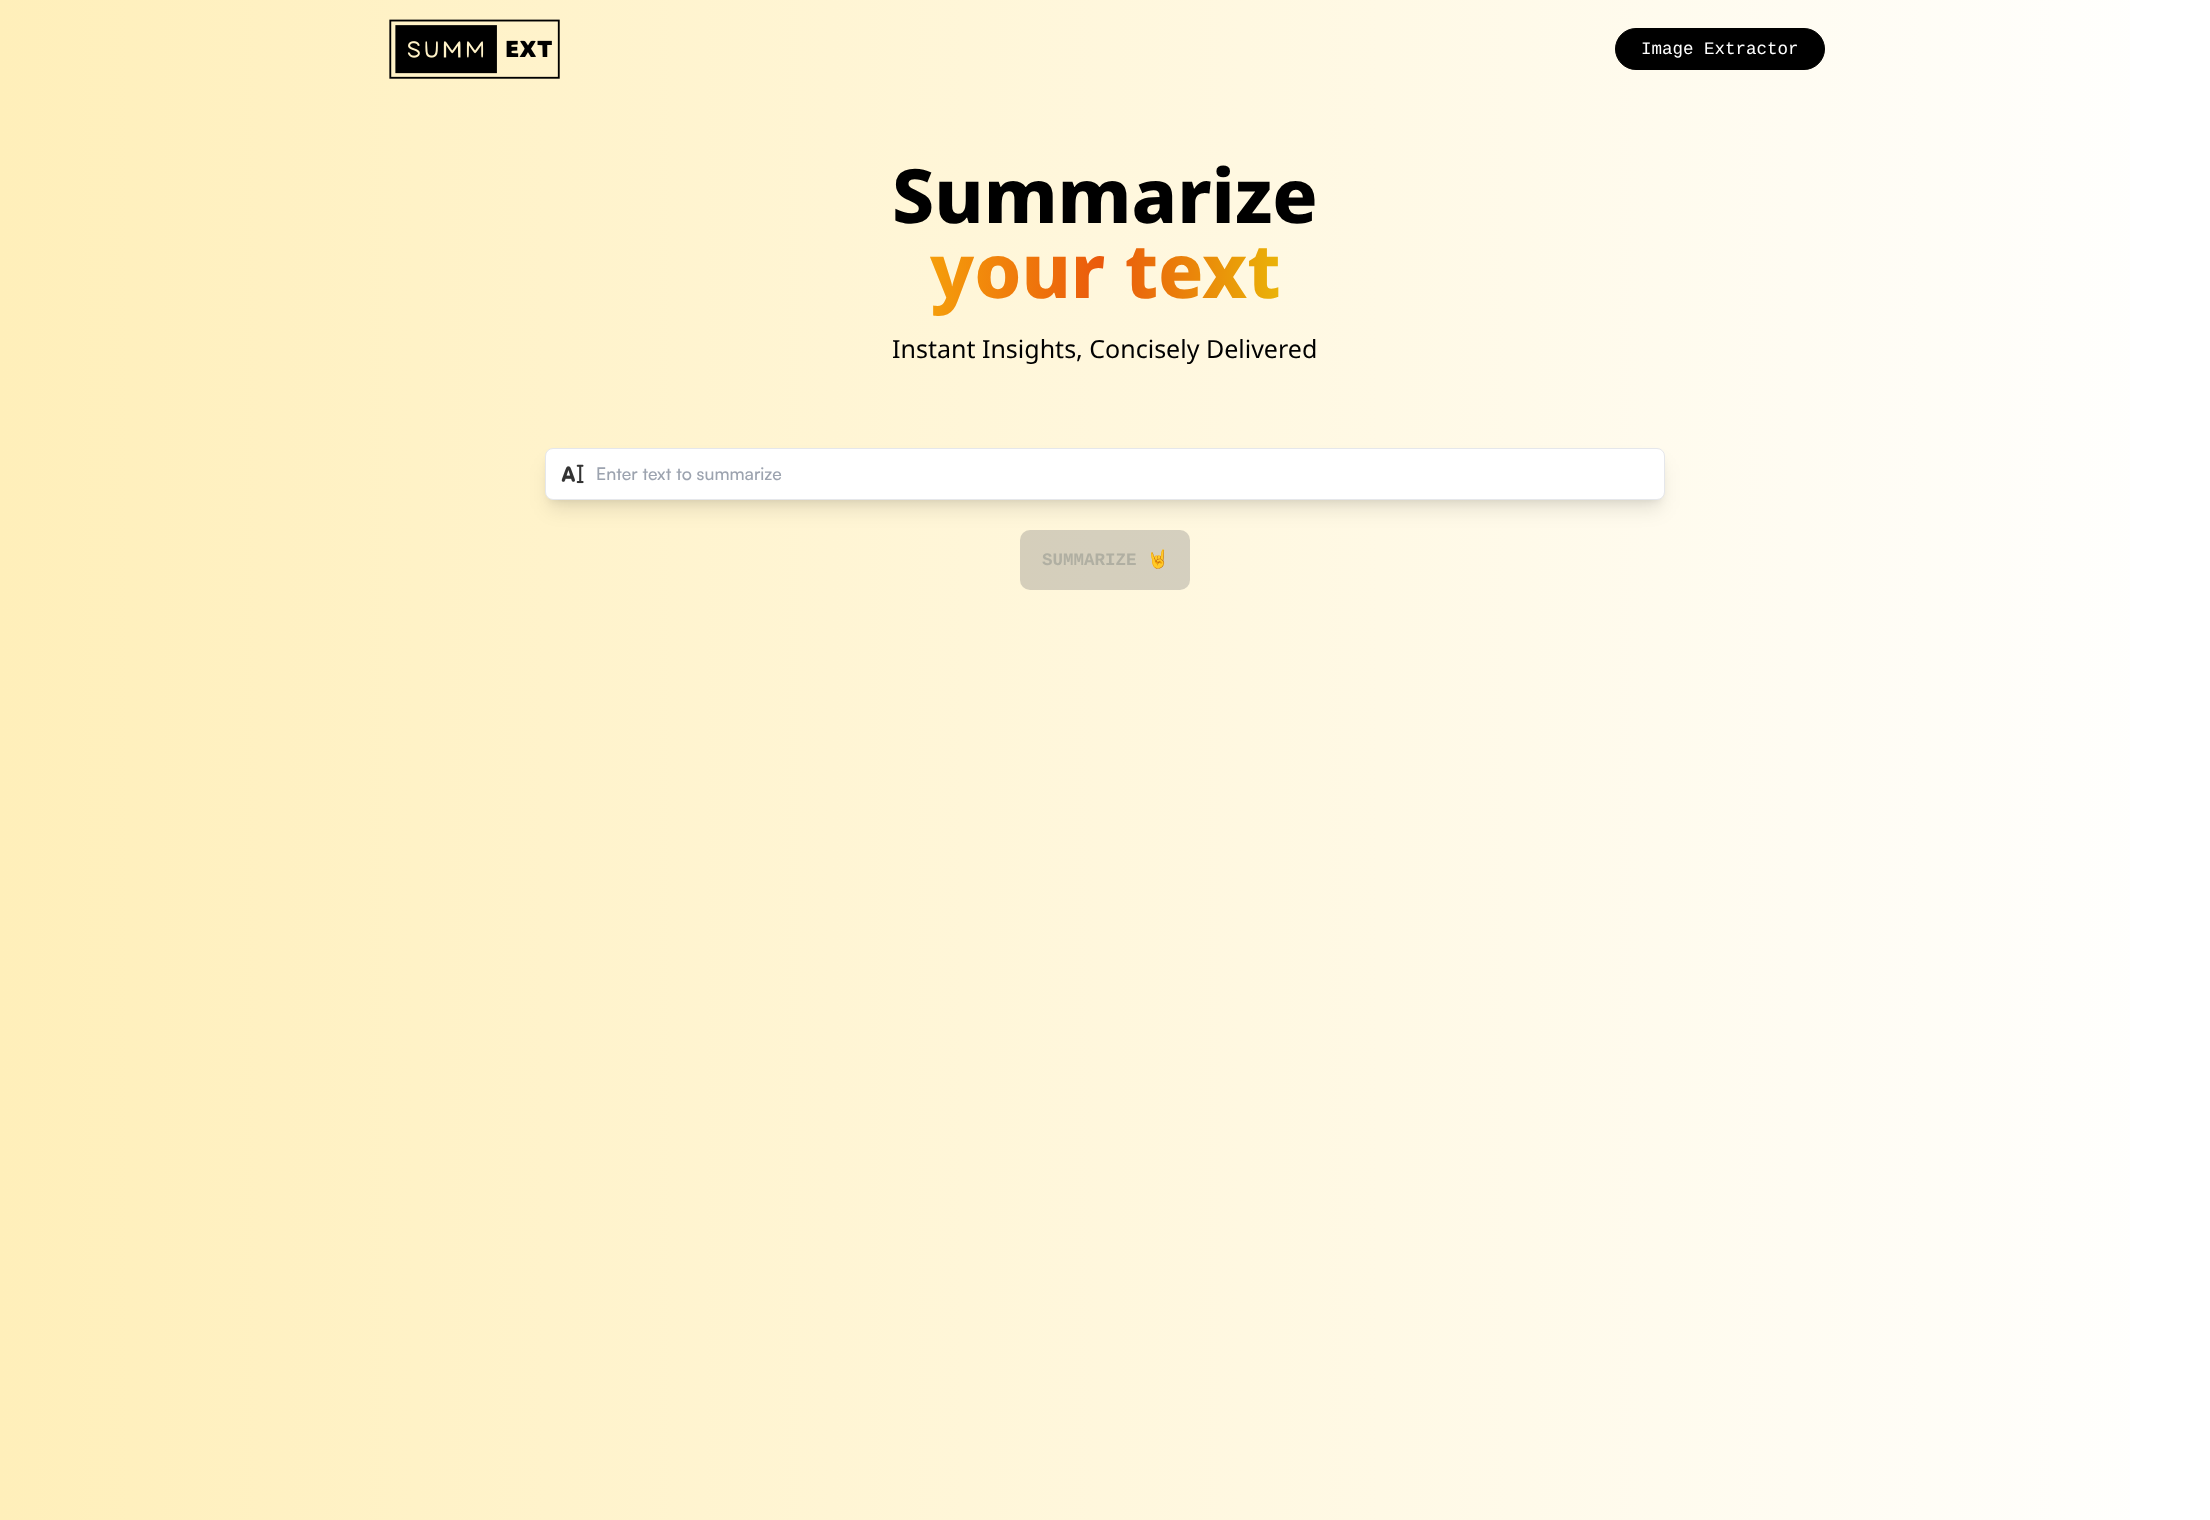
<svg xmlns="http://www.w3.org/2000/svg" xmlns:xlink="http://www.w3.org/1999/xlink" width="2210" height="1520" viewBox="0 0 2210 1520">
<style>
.cls-1{font:17.5px Liberation Mono;fill:#ffffff}
.cls-2{font:800 75px Noto Sans;fill:#000000}
.cls-3{font:800 75px Noto Sans;fill:url(#g1)}
.cls-4{font:25px Noto Sans;fill:#000000}
.cls-5{font:500 17.5px Satoshi;fill:#9ca3af}
.cls-6{font:bold 17.5px Liberation Mono;fill:#b0afa2}
.cls-7{font:bold 17.5px Noto Color Emoji;fill:#b0afa2}
</style>
<defs>
<linearGradient id="g1" gradientUnits="userSpaceOnUse" x1="930" y1="270" x2="1280" y2="270"><stop offset="0" stop-color="#f59e0b"/><stop offset="0.5" stop-color="#ea580c"/><stop offset="1" stop-color="#eab308"/></linearGradient>
<linearGradient id="g2" gradientUnits="userSpaceOnUse" x1="2210" y1="760" x2="0" y2="760"><stop offset="0" stop-color="#ffffff"/><stop offset="1" stop-color="#ffefba"/></linearGradient>
</defs>
<rect width="100%" height="100%" fill="#ffffff"/>
<rect fill="url(#g2)" x="0" y="0" width="2130" height="1520"/>
<image xlink:href="image0.png" x="389" y="19" width="171" height="60"/>
<rect fill="#000000" stroke="#000000" x="1615.5" y="28.5" width="209" height="41" rx="20.5"/>
<rect fill="#000000" fill-opacity="0.1" filter="blur(4px)" x="550" y="458" width="1110" height="42" rx="2.5"/>
<rect fill="#2b3440" fill-opacity="0.2" x="1020" y="530" width="170" height="60" rx="10"/>
<rect fill="#000000" fill-opacity="0.1" filter="blur(9.5px)" x="549" y="464" width="1112" height="45" rx="4"/>
<rect fill="#ffffff" stroke="#e5e7eb" x="545.5" y="448.5" width="1119" height="51" rx="7.5"/>
<image xlink:href="image1.png" x="561" y="464" width="23" height="20"/>
<text class="cls-1" x="1641" y="54">Image Extractor</text>
<text class="cls-2" x="892" y="223">Summarize</text>
<text class="cls-3" x="930" y="298">your text</text>
<text class="cls-4" x="892" y="358">Instant Insights, Concisely Delivered</text>
<text class="cls-5" x="596" y="480">Enter text to summarize</text>
<text class="cls-6" x="1042" y="565">SUMMARIZE</text>
<text class="cls-7" x="1147" y="565">🤘</text>
</svg>
